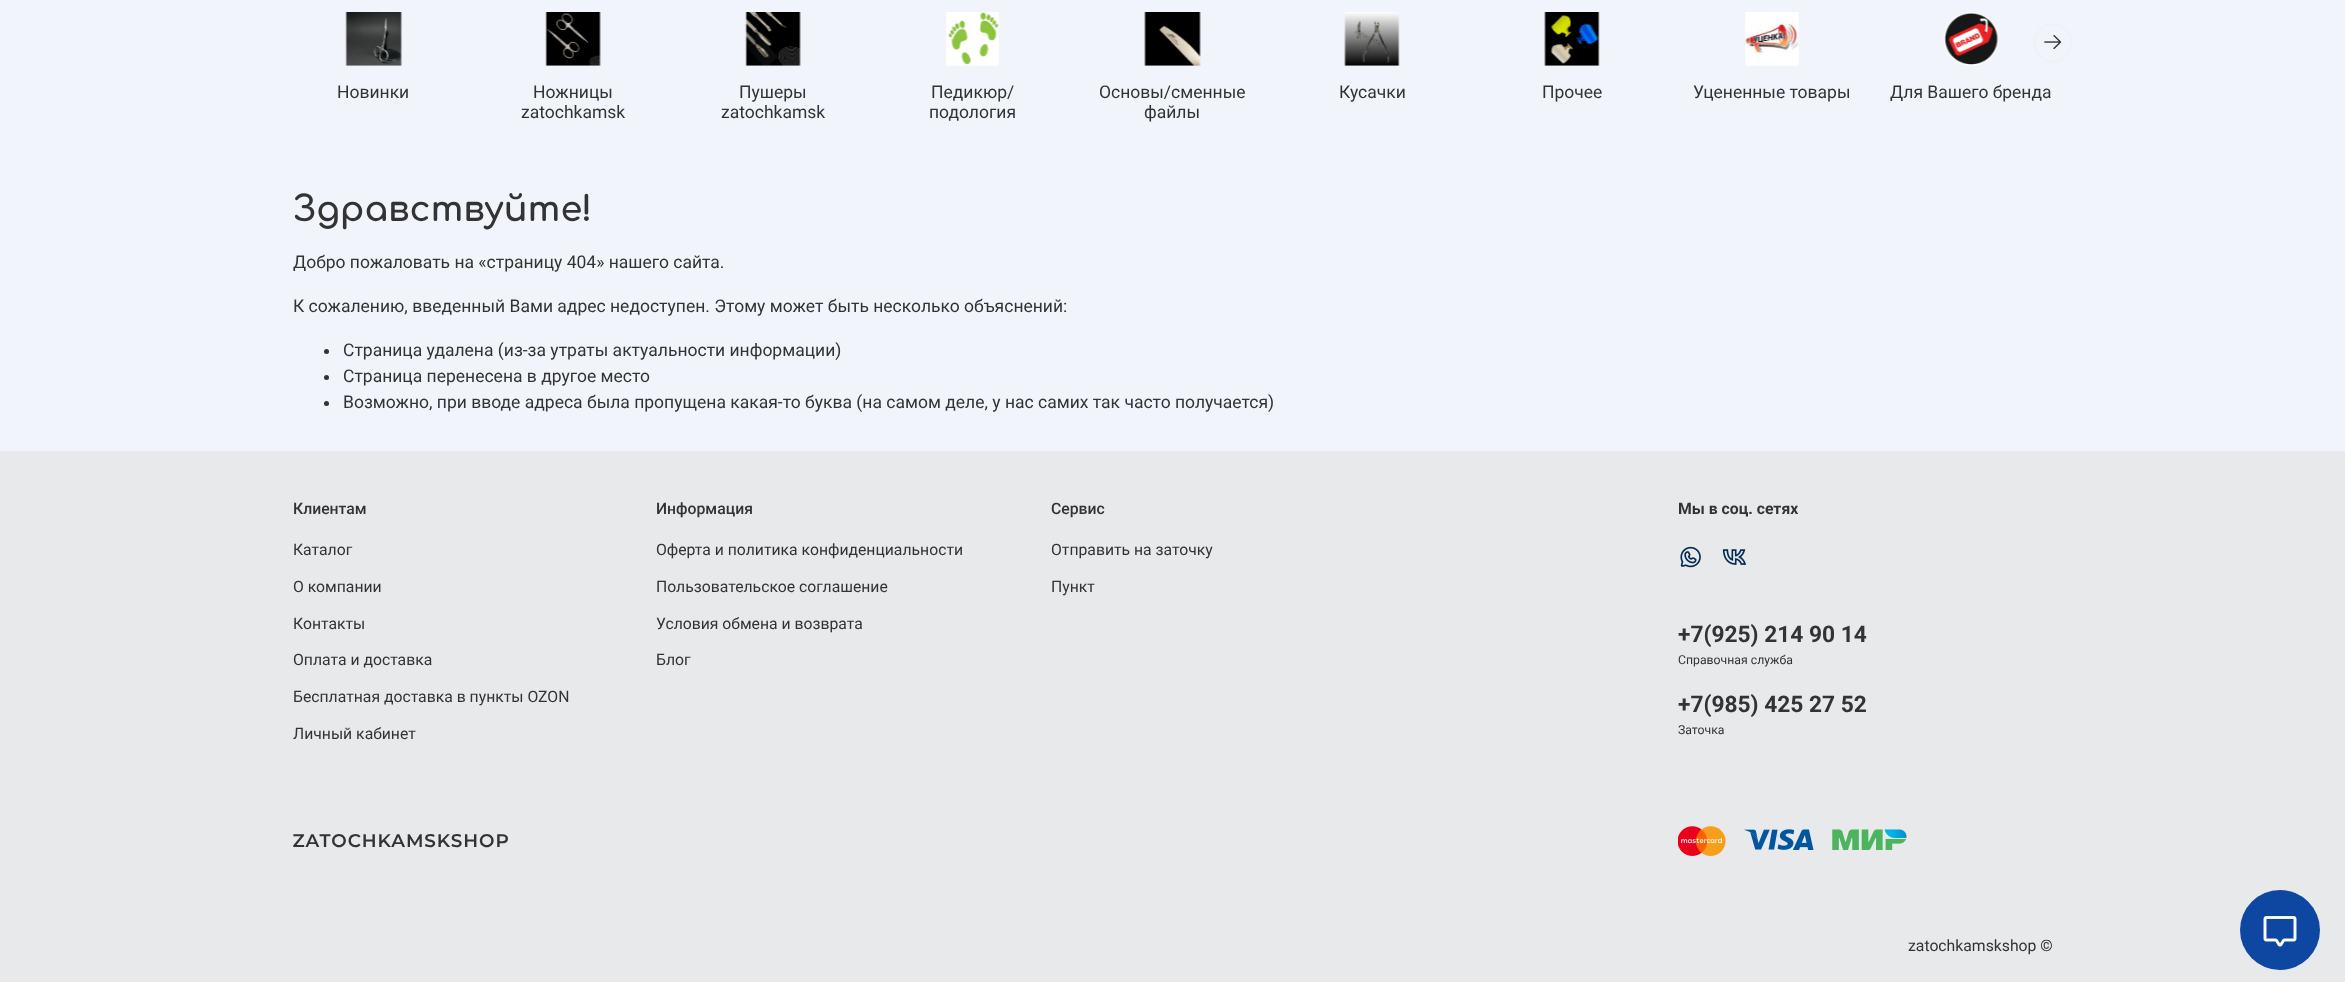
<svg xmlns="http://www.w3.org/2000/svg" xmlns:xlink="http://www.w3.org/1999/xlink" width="2345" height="982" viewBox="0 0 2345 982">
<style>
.cls-1{font:17.5px Roboto;fill:#333333}
.cls-2{font:bold 35px Comfortaa;fill:#333333}
.cls-3{font:500 15.75px Roboto;fill:#333333}
.cls-4{font:15.75px Roboto;fill:#333333}
.cls-5{font:bold 15.75px Roboto;fill:#333333}
.cls-6{font:bold 22.75px Roboto;fill:#333333}
.cls-7{font:12.25px Roboto;fill:#333333}
</style>
<rect width="100%" height="100%" fill="#f1f5fb"/>
<circle fill="none" stroke="#eef3fa" stroke-width="3" cx="2053" cy="43" r="18.5"/>
<image xlink:href="image0.png" x="2044" y="35" width="18" height="15"/>
<image xlink:href="image1.png" x="345" y="12" width="57" height="54"/>
<image xlink:href="image2.png" x="545" y="12" width="56" height="54"/>
<image xlink:href="image3.png" x="745" y="12" width="56" height="54"/>
<image xlink:href="image4.png" x="946" y="12" width="53" height="54"/>
<image xlink:href="image5.png" x="1144" y="12" width="57" height="54"/>
<image xlink:href="image6.png" x="1344" y="12" width="56" height="54"/>
<image xlink:href="image7.png" x="1544" y="12" width="56" height="54"/>
<image xlink:href="image8.png" x="1745" y="12" width="54" height="54"/>
<image xlink:href="image9.png" x="1943" y="12" width="56" height="54"/>
<circle fill="#333333" cx="326.5" cy="351.5" r="2.5"/>
<circle fill="#333333" cx="326.5" cy="377.5" r="2.5"/>
<circle fill="#333333" cx="326.5" cy="403.5" r="2.5"/>
<rect fill="#e8e9eb" x="0" y="451" width="2345" height="531"/>
<image xlink:href="image10.png" x="1680" y="546" width="21" height="22"/>
<image xlink:href="image11.png" x="1722" y="549" width="24" height="16"/>
<image xlink:href="image12.png" x="293" y="834" width="215" height="14"/>
<image xlink:href="image13.png" x="1678" y="826" width="48" height="30"/>
<image xlink:href="image14.png" x="1744" y="829" width="70" height="21"/>
<image xlink:href="image15.png" x="1832" y="829" width="75" height="21"/>
<circle fill="#0d47a1" cx="2280" cy="930" r="40"/>
<image xlink:href="image16.png" x="2263" y="916" width="34" height="31"/>
<text class="cls-1" x="337" y="98">Новинки</text>
<text class="cls-1" x="533" y="98">Ножницы</text>
<text class="cls-1" x="521" y="118">zatochkamsk</text>
<text class="cls-1" x="739" y="98">Пушеры</text>
<text class="cls-1" x="721" y="118">zatochkamsk</text>
<text class="cls-1" x="931" y="98">Педикюр/</text>
<text class="cls-1" x="929" y="118">подология</text>
<text class="cls-1" x="1099" y="98">Основы/сменные</text>
<text class="cls-1" x="1144" y="118">файлы</text>
<text class="cls-1" x="1339" y="98">Кусачки</text>
<text class="cls-1" x="1542" y="98">Прочее</text>
<text class="cls-1" x="1693" y="98">Уцененные товары</text>
<text class="cls-1" x="1890" y="98">Для Вашего бренда</text>
<text class="cls-2" x="293" y="221">Здравствуйте!</text>
<text class="cls-1" x="293" y="268">Добро пожаловать на «страницу 404» нашего сайта.</text>
<text class="cls-1" x="293" y="312">К сожалению, введенный Вами адрес недоступен. Этому может быть несколько объяснений:</text>
<text class="cls-1"><tspan x="343" y="356">Страница удалена (из-за утраты актуальности информации)</tspan><tspan x="343" y="382">Страница перенесена в другое место</tspan><tspan x="343" y="408">Возможно, при вводе адреса была пропущена какая-то буква (на самом деле, у нас самих так часто получается)</tspan></text>
<text class="cls-3" x="293" y="514">Клиентам</text>
<text class="cls-4" x="293" y="555">Каталог</text>
<text class="cls-4" x="293" y="592">О компании</text>
<text class="cls-4" x="293" y="629">Контакты</text>
<text class="cls-4" x="293" y="665">Оплата и доставка</text>
<text class="cls-4" x="293" y="702">Бесплатная доставка в пункты OZON</text>
<text class="cls-4" x="293" y="739">Личный кабинет</text>
<text class="cls-3" x="656" y="514">Информация</text>
<text class="cls-4" x="656" y="555">Оферта и политика конфиденциальности</text>
<text class="cls-4" x="656" y="592">Пользовательское соглашение</text>
<text class="cls-4" x="656" y="629">Условия обмена и возврата</text>
<text class="cls-4" x="656" y="665">Блог</text>
<text class="cls-3" x="1051" y="514">Сервис</text>
<text class="cls-4" x="1051" y="555">Отправить на заточку</text>
<text class="cls-4" x="1051" y="592">Пункт</text>
<text class="cls-5" x="1678" y="514">Мы в соц. сетях</text>
<text class="cls-6" x="1678" y="642">+7(925) 214 90 14</text>
<text class="cls-7" x="1678" y="664">Справочная служба</text>
<text class="cls-6" x="1678" y="712">+7(985) 425 27 52</text>
<text class="cls-7" x="1678" y="734">Заточка</text>
<text class="cls-4" x="1908" y="951">zatochkamskshop ©</text>
</svg>
